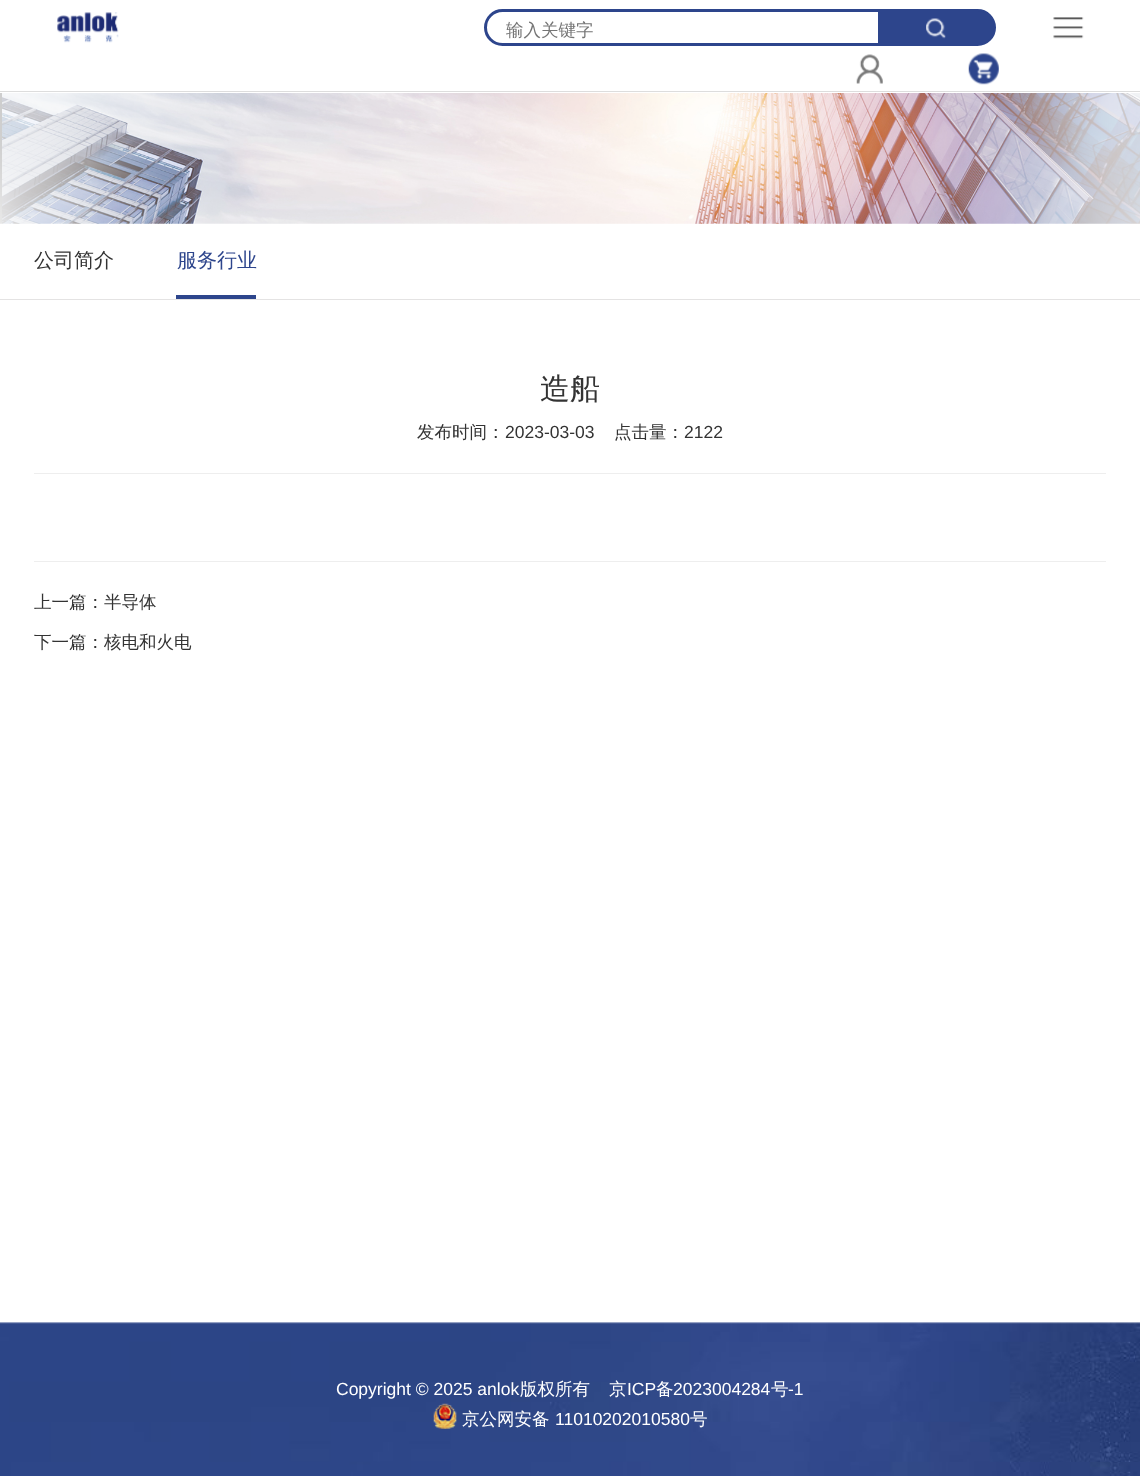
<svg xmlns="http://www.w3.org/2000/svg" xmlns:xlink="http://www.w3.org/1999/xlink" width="1140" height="1476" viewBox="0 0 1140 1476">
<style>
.cls-1{font:500 17.5px WenQuanYi Zen Hei;fill:#757575}
.cls-2{font:500 20px WenQuanYi Zen Hei;fill:#333333}
.cls-3{font:500 20px WenQuanYi Zen Hei;fill:#2d458c}
.cls-4{font:500 30px WenQuanYi Zen Hei;fill:#333333}
.cls-5{font:500 17.5px WenQuanYi Zen Hei;fill:#333333}
.cls-6{font:17.5px Liberation Sans;fill:#333333}
.cls-7{font:17.5px Liberation Sans;fill:#ffffff}
.cls-8{font:500 17.5px WenQuanYi Zen Hei;fill:#ffffff}
</style>
<rect width="100%" height="100%" fill="#ffffff"/>
<rect fill="#dddddd" x="0" y="91" width="1140" height="1"/>
<image xlink:href="image0.png" x="57" y="12" width="62" height="31"/>
<rect fill="none" stroke="#2d458c" stroke-width="3" x="485.5" y="10.5" width="509" height="34" rx="17"/>
<path fill="#2d458c" d="M878 11H977.5C986.5 11 994 18.5 994 27.5C994 36.5 986.5 44 977.5 44H878Z"/>
<image xlink:href="image1.png" x="926" y="18" width="20" height="21"/>
<image xlink:href="image2.png" x="1053" y="17" width="31" height="22"/>
<image xlink:href="image3.png" x="856" y="54" width="27" height="30"/>
<image xlink:href="image4.png" x="968" y="53" width="31" height="32"/>
<image xlink:href="image5.png" x="0" y="93" width="1140" height="131"/>
<rect fill="#e4e3e3" x="0" y="299" width="1140" height="1"/>
<rect fill="#2d458c" x="176" y="295" width="80" height="4"/>
<rect fill="#eeeeee" x="34" y="473" width="1072" height="1"/>
<rect fill="#eeeeee" x="34" y="561" width="1072" height="1"/>
<image xlink:href="image6.png" x="0" y="1322" width="1140" height="154"/>
<rect fill="#ffffff" fill-opacity="0.1" x="0" y="1323" width="1140" height="1"/>
<image xlink:href="image7.png" x="433" y="1403" width="24" height="26"/>
<text class="cls-1" x="506" y="36">输入关键字</text>
<text class="cls-2" x="34" y="267">公司简介</text>
<text class="cls-3" x="177" y="267">服务行业</text>
<text class="cls-4" x="540" y="399">造船</text>
<text class="cls-5" x="417" y="438">发布时间：</text>
<text class="cls-6" x="505" y="438">2023-03-03</text>
<text class="cls-5" x="614" y="438">点击量：</text>
<text class="cls-6" x="684" y="438">2122</text>
<text class="cls-5" x="34" y="608">上一篇：半导体</text>
<text class="cls-5" x="34" y="648">下一篇：核电和火电</text>
<text class="cls-7" x="336" y="1395">Copyright © 2025 anlok</text>
<text class="cls-8" x="520" y="1395">版权所有</text>
<text class="cls-8" x="609" y="1395">京</text>
<text class="cls-7" x="627" y="1395">ICP</text>
<text class="cls-8" x="656" y="1395">备</text>
<text class="cls-7" x="673" y="1395">2023004284</text>
<text class="cls-8" x="771" y="1395">号</text>
<text class="cls-7" x="788" y="1395">-1</text>
<text class="cls-8" x="462" y="1425">京公网安备</text>
<text class="cls-7" x="555" y="1425">11010202010580</text>
<text class="cls-8" x="690" y="1425">号</text>
</svg>
